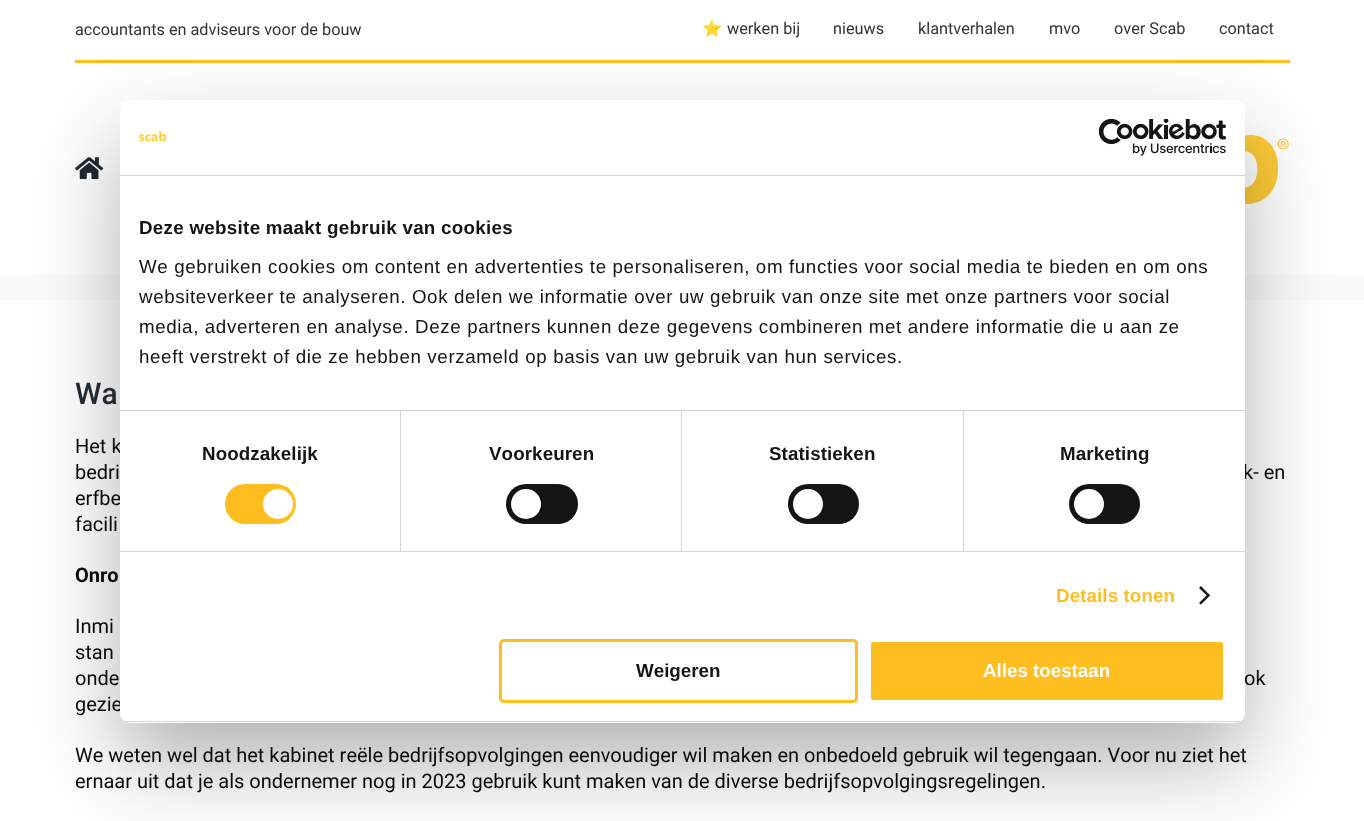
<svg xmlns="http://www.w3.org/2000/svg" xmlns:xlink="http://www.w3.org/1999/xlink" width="1364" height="821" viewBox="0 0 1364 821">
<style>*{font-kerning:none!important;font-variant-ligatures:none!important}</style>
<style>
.cls-1{font:16.25px Roboto;fill:#333333}
.cls-2{font:16.25px Noto Color Emoji;fill:#333333}
.cls-3{font:500 30px Roboto;fill:#212934}
.cls-4{font:20px Roboto;fill:#0c0a06}
.cls-5{font:bold 20px Roboto;fill:#0c0a06}
.cls-6{font:bold 18.75px Liberation Sans;letter-spacing:0.3px;fill:#141414}
.cls-7{font:18.75px Liberation Sans;letter-spacing:0.62px;fill:#141414}
.cls-8{font:bold 18.75px Liberation Sans;letter-spacing:0.1px;fill:#141414}
.cls-9{font:bold 18.75px Liberation Sans;letter-spacing:0.1px;fill:#ffbe20}
.cls-10{font:bold 18.75px Liberation Sans;fill:#141414}
.cls-11{font:bold 18.75px Liberation Sans;fill:#ffffff}
</style>
<defs>
<clipPath id="clip1"><rect x="120" y="100" width="1125" height="623" rx="10"/></clipPath>
</defs>
<rect width="100%" height="100%" fill="#ffffff"/>
<rect fill="#ffbe20" x="75" y="60" width="1215" height="3"/>
<image xlink:href="image0.png" x="75" y="157" width="29" height="23"/>
<image xlink:href="image1.png" x="1245" y="135" width="44" height="69"/>
<rect fill="#fafafa" x="0" y="275" width="1364" height="25"/>
<rect fill="#000000" fill-opacity="0.3" filter="blur(42.5px)" x="120" y="140" width="1125" height="623" rx="10"/>
<text class="cls-1" x="75" y="35">accountants en adviseurs voor de bouw</text>
<text class="cls-2" x="702" y="34">⭐</text>
<text class="cls-1" x="727" y="34">werken bij</text>
<text class="cls-1" x="833" y="34">nieuws</text>
<text class="cls-1" x="918" y="34">klantverhalen</text>
<text class="cls-1" x="1049" y="34">mvo</text>
<text class="cls-1" x="1114" y="34">over Scab</text>
<text class="cls-1" x="1219" y="34">contact</text>
<text class="cls-3" x="75" y="404">Wa</text>
<text class="cls-4"><tspan x="75" y="453">Het k</tspan><tspan x="75" y="479">bedri</tspan></text>
<text class="cls-4" x="1243" y="479">k- en</text>
<text class="cls-4"><tspan x="75" y="505">erfbe</tspan><tspan x="75" y="531">facili</tspan></text>
<text class="cls-5" x="75" y="582">Onro</text>
<text class="cls-4"><tspan x="75" y="633">Inmi</tspan><tspan x="75" y="659">stan</tspan><tspan x="75" y="685">onde</tspan></text>
<text class="cls-4" x="1244" y="685">ok</text>
<text class="cls-4" x="75" y="711">gezie</text>
<text class="cls-4"><tspan x="75" y="762">We weten wel dat het kabinet reële bedrijfsopvolgingen eenvoudiger wil maken en onbedoeld gebruik wil tegengaan. Voor nu ziet het</tspan><tspan x="75" y="788">ernaar uit dat je als ondernemer nog in 2023 gebruik kunt maken van de diverse bedrijfsopvolgingsregelingen.</tspan></text>
<rect fill="#ffffff" x="120" y="100" width="1125" height="623" rx="10"/>
<rect fill="#d6d6d6" x="120" y="175" width="1125" height="1"/>
<image xlink:href="image2.png" x="138" y="131" width="30" height="11"/>
<image xlink:href="image3.png" x="1099" y="119" width="127" height="37"/>
<rect fill="#d6d6d6" x="120" y="410" width="1125" height="1"/>
<text class="cls-6" x="139" y="234">Deze website maakt gebruik van cookies</text>
<text class="cls-7"><tspan x="139" y="273">We gebruiken cookies om content en advertenties te personaliseren, om functies voor social media te bieden en om ons</tspan><tspan x="139" y="303">websiteverkeer te analyseren. Ook delen we informatie over uw gebruik van onze site met onze partners voor social</tspan><tspan x="139" y="333">media, adverteren en analyse. Deze partners kunnen deze gegevens combineren met andere informatie die u aan ze</tspan><tspan x="139" y="363">heeft verstrekt of die ze hebben verzameld op basis van uw gebruik van hun services.</tspan></text>
<rect fill="#d6d6d6" x="120" y="551" width="1125" height="1"/>
<rect fill="#d6d6d6" x="400" y="411" width="1" height="140"/>
<text class="cls-8" x="202" y="460">Noodzakelijk</text>
<rect fill="#ffbe20" x="225" y="484" width="71" height="40" rx="20"/>
<circle fill="#ffffff" cx="278" cy="504" r="15"/>
<rect fill="#d6d6d6" x="681" y="411" width="1" height="140"/>
<text class="cls-8" x="489" y="460">Voorkeuren</text>
<rect fill="#141414" x="506" y="484" width="72" height="40" rx="20"/>
<circle fill="#ffffff" cx="526" cy="504" r="15"/>
<rect fill="#d6d6d6" x="963" y="411" width="1" height="140"/>
<text class="cls-8" x="769" y="460">Statistieken</text>
<rect fill="#141414" x="788" y="484" width="71" height="40" rx="20"/>
<circle fill="#ffffff" cx="808" cy="504" r="15"/>
<text class="cls-8" x="1060" y="460">Marketing</text>
<rect fill="#141414" x="1069" y="484" width="71" height="40" rx="20"/>
<circle fill="#ffffff" cx="1089" cy="504" r="15"/>
<text class="cls-9" x="1056" y="602">Details tonen</text>
<path fill="#141414" d="M1201 586L1210 595.5L1208.5 597L1199 588Z"/>
<path fill="#141414" d="M1208.5 593.5L1210 595.5L1201 604.5L1199 603Z"/>
<g clip-path="url(#clip1)">
<rect fill="#d6d6d6" x="120" y="721" width="1125" height="1"/>
</g>
<rect fill="none" stroke="#ffbe20" stroke-width="3" x="500.5" y="640.5" width="356" height="61" rx="3.5"/>
<text class="cls-10" x="636" y="677">Weigeren</text>
<rect fill="#ffbe20" stroke="#ffffff" stroke-width="3" x="869.5" y="640.5" width="355" height="61" rx="3.5"/>
<text class="cls-11" x="983" y="677">Alles toestaan</text>
</svg>
